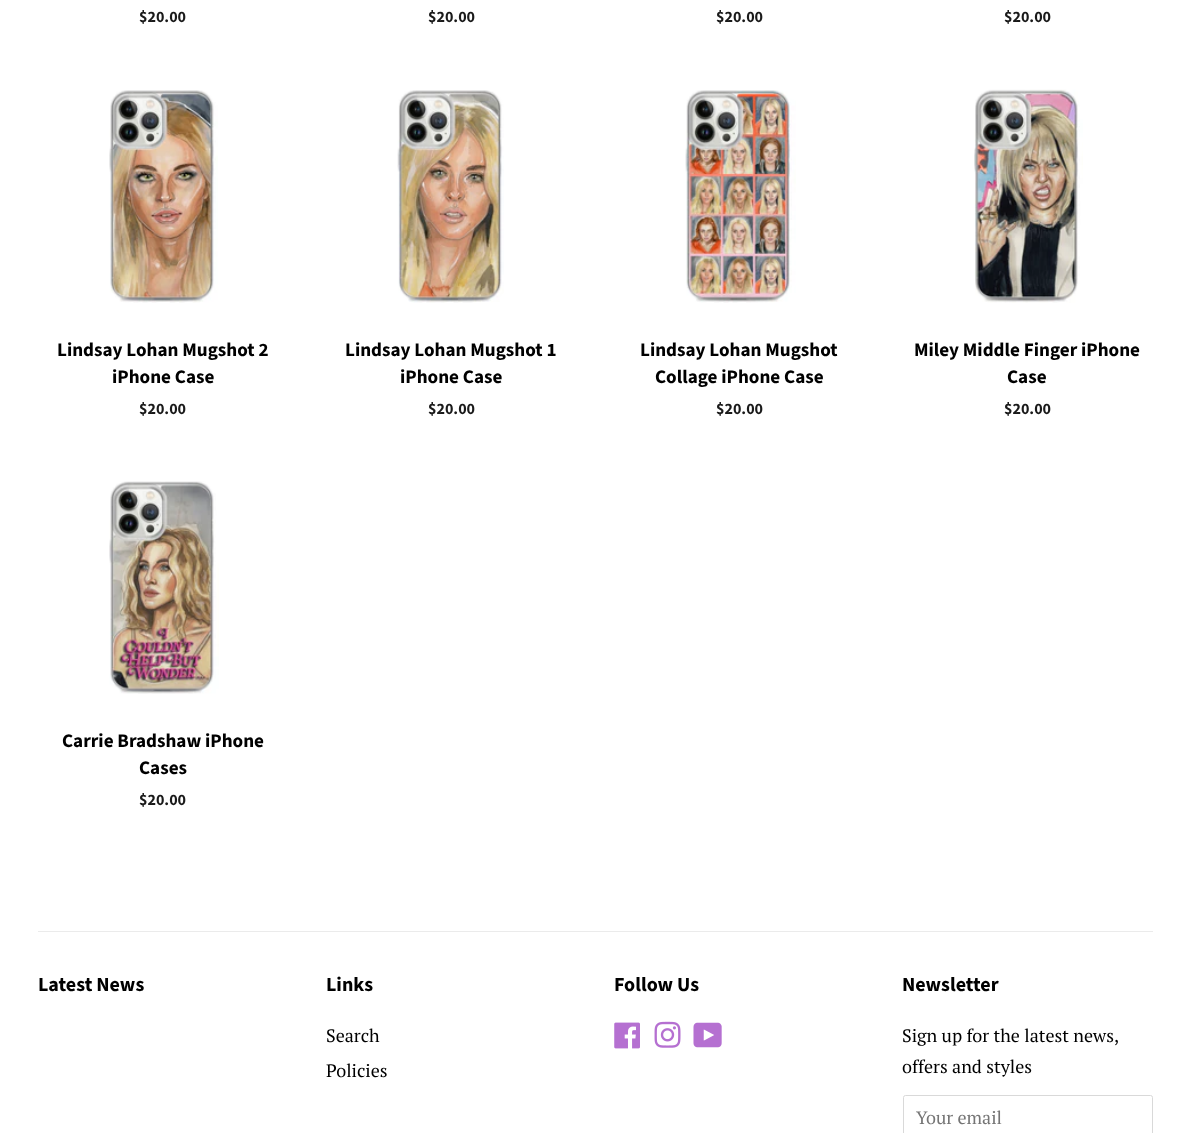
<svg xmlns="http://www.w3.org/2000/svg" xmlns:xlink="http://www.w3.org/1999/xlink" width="1189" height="1133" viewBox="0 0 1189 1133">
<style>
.cls-1{font:bold 16px Source Sans Pro;fill:#1a1a1a}
.cls-2{font:bold 19.1px Source Sans Pro;fill:#000000}
.cls-3{font:bold 20px Source Sans Pro;fill:#000000}
.cls-4{font:18px PT Serif;fill:#000000}
.cls-5{font:18px PT Serif;fill:#757575}
</style>
<rect width="100%" height="100%" fill="#ffffff"/>
<image xlink:href="image0.png" x="109" y="90" width="109" height="213"/>
<image xlink:href="image1.png" x="397" y="90" width="107" height="213"/>
<image xlink:href="image2.png" x="685" y="90" width="111" height="213"/>
<image xlink:href="image3.png" x="974" y="89" width="109" height="214"/>
<image xlink:href="image4.png" x="109" y="481" width="110" height="213"/>
<rect fill="#ebebeb" x="38" y="931" width="1115" height="1"/>
<image xlink:href="image5.png" x="614" y="1022" width="26" height="27"/>
<image xlink:href="image6.png" x="654" y="1021" width="27" height="27"/>
<image xlink:href="image7.png" x="693" y="1022" width="29" height="26"/>
<rect fill="none" stroke="#d9d9d9" x="903.5" y="1095.5" width="249" height="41" rx="2"/>
<text class="cls-1" x="139" y="22">$20.00</text>
<text class="cls-1" x="428" y="22">$20.00</text>
<text class="cls-1" x="716" y="22">$20.00</text>
<text class="cls-1" x="1004" y="22">$20.00</text>
<text class="cls-2" x="57" y="356">Lindsay Lohan Mugshot 2</text>
<text class="cls-2" x="112" y="383">iPhone Case</text>
<text class="cls-1" x="139" y="414">$20.00</text>
<text class="cls-2" x="345" y="356">Lindsay Lohan Mugshot 1</text>
<text class="cls-2" x="400" y="383">iPhone Case</text>
<text class="cls-1" x="428" y="414">$20.00</text>
<text class="cls-2" x="640" y="356">Lindsay Lohan Mugshot</text>
<text class="cls-2" x="655" y="383">Collage iPhone Case</text>
<text class="cls-1" x="716" y="414">$20.00</text>
<text class="cls-2" x="914" y="356">Miley Middle Finger iPhone</text>
<text class="cls-2" x="1007" y="383">Case</text>
<text class="cls-1" x="1004" y="414">$20.00</text>
<text class="cls-2" x="62" y="747">Carrie Bradshaw iPhone</text>
<text class="cls-2" x="139" y="774">Cases</text>
<text class="cls-1" x="139" y="805">$20.00</text>
<text class="cls-3" x="38" y="991">Latest News</text>
<text class="cls-3" x="326" y="991">Links</text>
<text class="cls-4"><tspan x="326" y="1042">Search</tspan><tspan x="326" y="1077">Policies</tspan></text>
<text class="cls-3" x="614" y="991">Follow Us</text>
<text class="cls-3" x="902" y="991">Newsletter</text>
<text class="cls-4"><tspan x="902" y="1042">Sign up for the latest news,</tspan><tspan x="902" y="1073">offers and styles</tspan></text>
<text class="cls-5" x="916" y="1124">Your email</text>
</svg>
